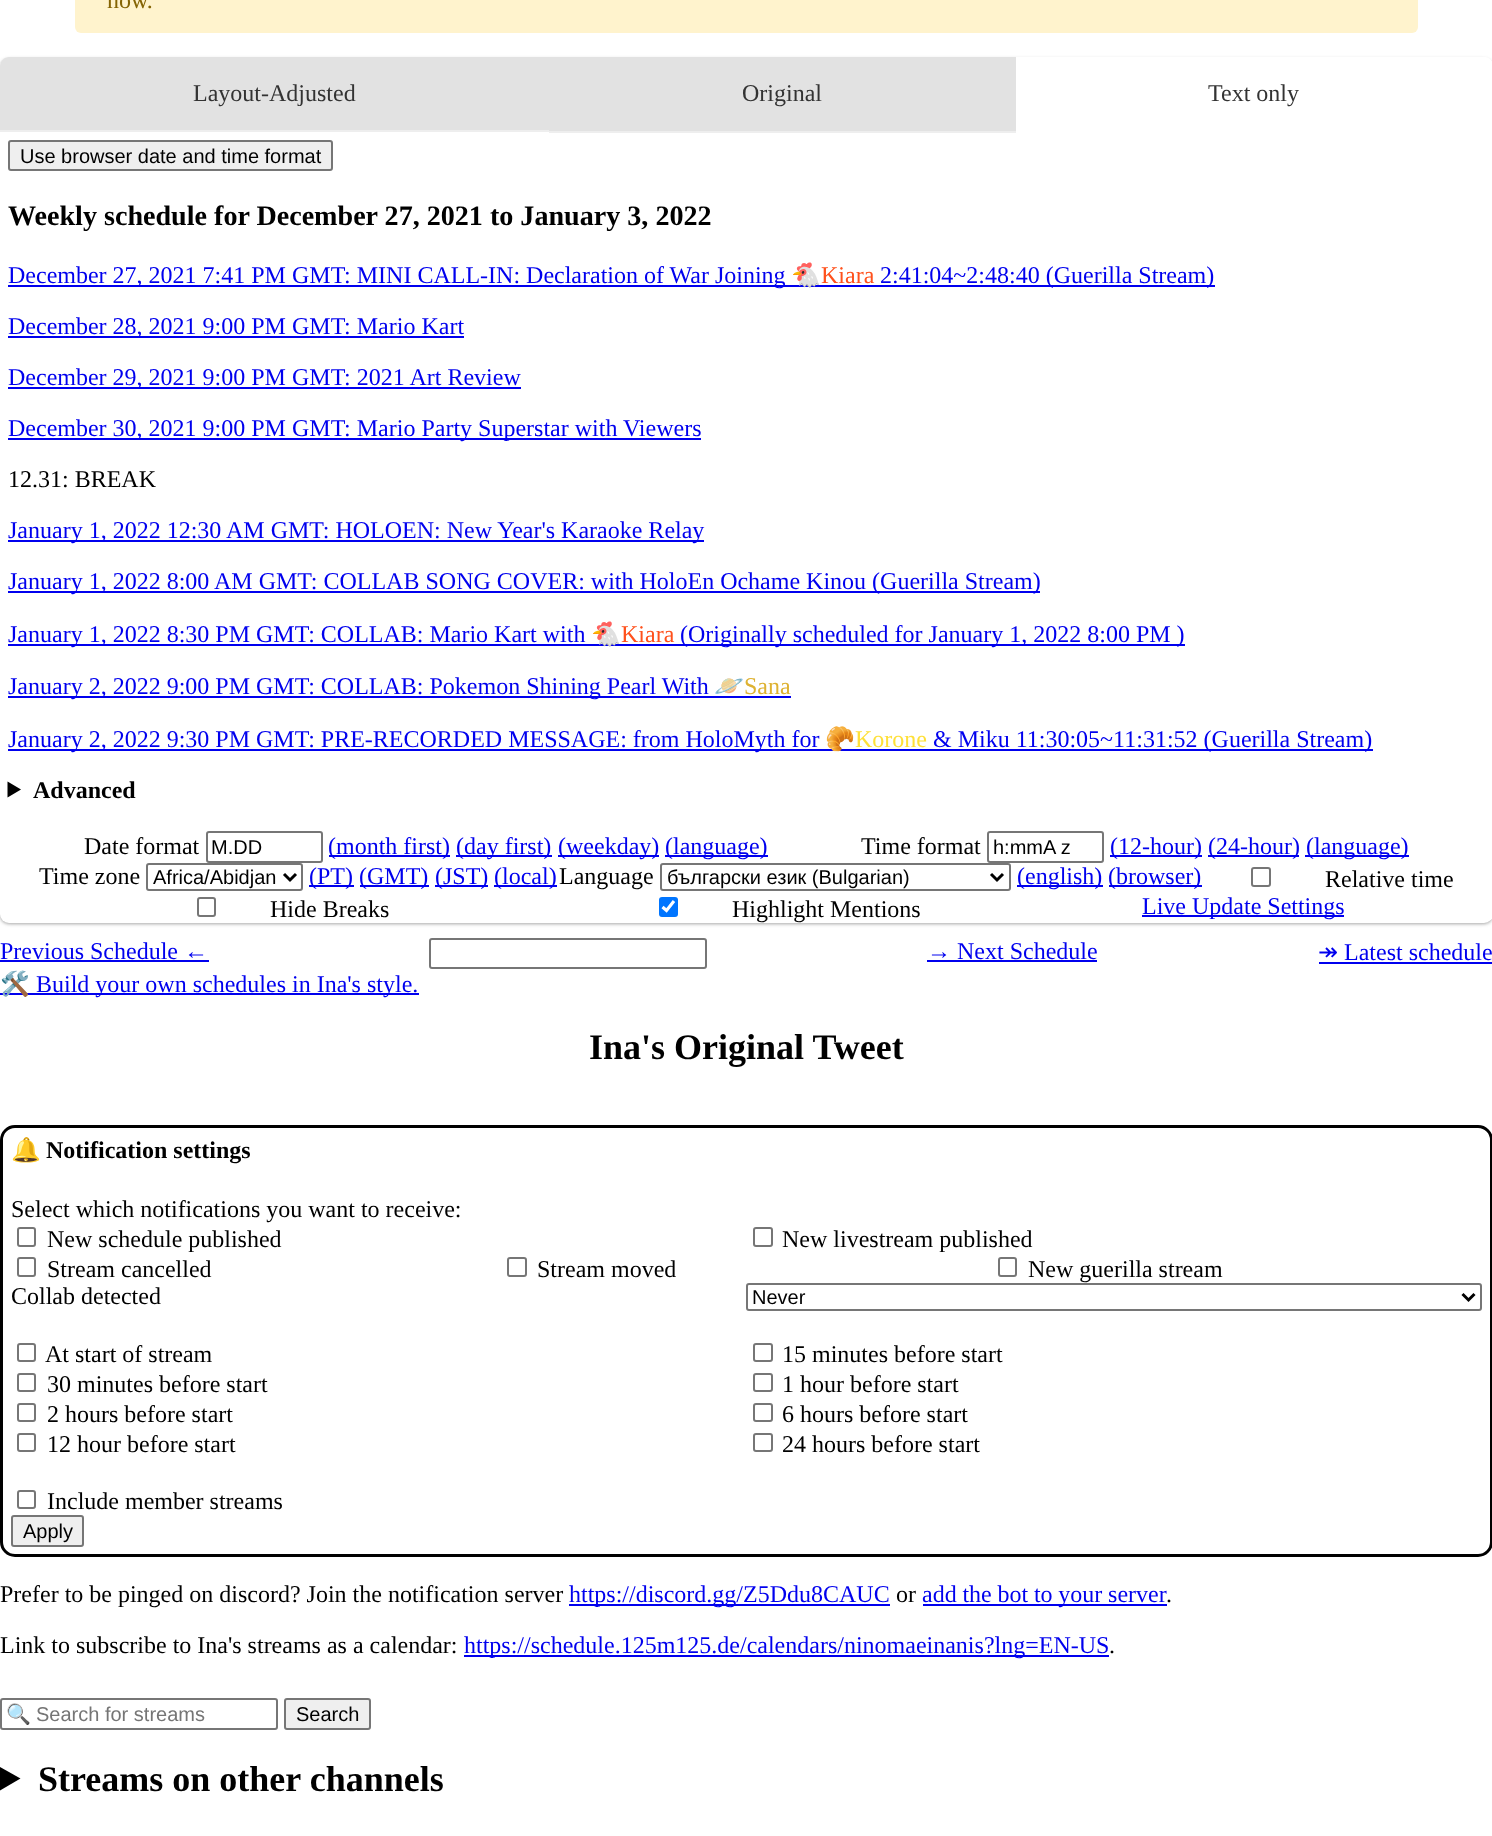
<svg xmlns="http://www.w3.org/2000/svg" xmlns:xlink="http://www.w3.org/1999/xlink" width="1492" height="1836" viewBox="0 0 1492 1836">
<style>
.cls-1{font:24px Liberation Serif;fill:#856404}
.cls-2{font:24px Liberation Serif;fill:#333333}
.cls-3{font:20px Liberation Sans;fill:#000000}
.cls-4{font:bold 28.1px Liberation Serif;fill:#000000}
.cls-5{font:24px Liberation Serif;fill:#0000ee}
.cls-6{font:24px Noto Color Emoji;fill:#ff511c}
.cls-7{font:24px Liberation Serif;fill:#ff511c}
.cls-8{font:24px Liberation Serif;fill:#000000}
.cls-9{font:24px Noto Color Emoji;fill:#deb232}
.cls-10{font:24px Liberation Serif;fill:#deb232}
.cls-11{font:24px Noto Color Emoji;fill:#fee039}
.cls-12{font:24px Liberation Serif;fill:#fee039}
.cls-13{font:bold 24px Liberation Serif;fill:#000000}
.cls-14{font:24px DejaVu Sans;fill:#0000ee}
.cls-15{font:24px Noto Color Emoji;fill:#0000ee}
.cls-16{font:bold 36px Liberation Serif;fill:#000000}
.cls-17{font:bold 24px Noto Color Emoji;fill:#000000}
.cls-18{font:20px Noto Color Emoji;fill:#757575}
.cls-19{font:20px Liberation Sans;fill:#757575}
</style>
<rect width="100%" height="100%" fill="#ffffff"/>
<rect fill="#fff3cd" x="75" y="-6" width="1343" height="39" rx="6"/>
<rect fill="#000000" fill-opacity="0.24" filter="blur(1.5px)" x="0" y="59" width="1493" height="865" rx="9"/>
<rect fill="#000000" fill-opacity="0.12" filter="blur(2px)" x="0" y="59" width="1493" height="865" rx="9"/>
<rect fill="#ffffff" x="0" y="57" width="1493" height="866" rx="9"/>
<path fill="#e2e2e2" d="M9 57H549V132H0V66C0 61 4 57 9 57Z"/>
<rect fill="#eeeeee" x="0" y="130" width="549" height="2"/>
<rect fill="#e2e2e2" x="549" y="57" width="467" height="74"/>
<rect fill="#eeeeee" x="549" y="131" width="467" height="2"/>
<path fill="#ffffff" d="M1016 57H1484C1489 57 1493 61 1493 66V132H1016Z"/>
<rect fill="#efefef" stroke="#767676" stroke-width="2" x="9" y="141" width="323" height="29" rx="2"/>
<rect fill="#0000ee" x="8" y="285" width="1207" height="2"/>
<rect fill="#0000ee" x="8" y="336" width="456" height="2"/>
<rect fill="#0000ee" x="8" y="387" width="513" height="2"/>
<rect fill="#0000ee" x="8" y="438" width="693" height="2"/>
<rect fill="#0000ee" x="8" y="540" width="696" height="2"/>
<rect fill="#0000ee" x="8" y="591" width="1032" height="2"/>
<rect fill="#0000ee" x="8" y="644" width="1177" height="2"/>
<rect fill="#0000ee" x="8" y="696" width="783" height="2"/>
<rect fill="#0000ee" x="8" y="749" width="1365" height="2"/>
<path fill="#000000" d="M7.5 781.5L21 789.5L7.5 797.5Z"/>
<rect fill="none" stroke="#767676" stroke-width="2" x="207" y="832" width="115" height="30" rx="2"/>
<rect fill="#0000ee" x="329" y="855" width="121" height="2"/>
<rect fill="#0000ee" x="456" y="855" width="96" height="2"/>
<rect fill="#0000ee" x="558" y="855" width="101" height="2"/>
<rect fill="#0000ee" x="665" y="855" width="103" height="2"/>
<rect fill="none" stroke="#767676" stroke-width="2" x="988" y="832" width="115" height="30" rx="2"/>
<rect fill="#0000ee" x="1110" y="855" width="92" height="2"/>
<rect fill="#0000ee" x="1208" y="855" width="91" height="2"/>
<rect fill="#0000ee" x="1305" y="855" width="104" height="2"/>
<rect fill="none" stroke="#767676" stroke-width="2" x="147" y="864" width="155" height="26" rx="2"/>
<path fill="none" stroke="#000000" stroke-width="3" d="M284 874L290 880L296 874"/>
<rect fill="#0000ee" x="309" y="885" width="45" height="2"/>
<rect fill="#0000ee" x="360" y="885" width="69" height="2"/>
<rect fill="#0000ee" x="435" y="885" width="53" height="2"/>
<rect fill="#0000ee" x="494" y="885" width="63" height="2"/>
<rect fill="none" stroke="#767676" stroke-width="2" x="661" y="864" width="349" height="26" rx="2"/>
<path fill="none" stroke="#000000" stroke-width="3" d="M991 874L997 880L1003 874"/>
<rect fill="#0000ee" x="1017" y="885" width="86" height="2"/>
<rect fill="#0000ee" x="1109" y="885" width="93" height="2"/>
<rect fill="none" stroke="#767676" stroke-width="2" x="1252" y="868" width="18" height="18" rx="2"/>
<rect fill="none" stroke="#767676" stroke-width="2" x="198" y="898" width="17" height="18" rx="2"/>
<rect fill="#0075ff" x="659" y="897" width="19" height="20" rx="3"/>
<path fill="none" stroke="#ffffff" stroke-width="3.1" d="M662.5 907L666.5 910.5L674 901"/>
<rect fill="#0000ee" x="1142" y="915" width="202" height="2"/>
<rect fill="#0000ee" x="0" y="960" width="209" height="2"/>
<rect fill="none" stroke="#767676" stroke-width="2" x="430" y="939" width="276" height="29" rx="2"/>
<rect fill="#0000ee" x="927" y="960" width="170" height="2"/>
<rect fill="#0000ee" x="1319" y="962" width="173" height="2"/>
<rect fill="#0000ee" x="0" y="993" width="419" height="2"/>
<rect fill="none" stroke="#000000" stroke-width="3" x="1.5" y="1126.5" width="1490" height="429" rx="13.5"/>
<rect fill="none" stroke="#767676" stroke-width="2" x="18" y="1228" width="17" height="18" rx="2"/>
<rect fill="none" stroke="#767676" stroke-width="2" x="754" y="1228" width="18" height="18" rx="2"/>
<rect fill="none" stroke="#767676" stroke-width="2" x="18" y="1258" width="17" height="18" rx="2"/>
<rect fill="none" stroke="#767676" stroke-width="2" x="508" y="1258" width="18" height="18" rx="2"/>
<rect fill="none" stroke="#767676" stroke-width="2" x="999" y="1258" width="17" height="18" rx="2"/>
<rect fill="none" stroke="#767676" stroke-width="2" x="747" y="1284" width="734" height="26" rx="2"/>
<path fill="none" stroke="#000000" stroke-width="3" d="M1462.5 1294L1468.5 1300L1474.5 1294"/>
<rect fill="none" stroke="#767676" stroke-width="2" x="18" y="1344" width="17" height="17" rx="2"/>
<rect fill="none" stroke="#767676" stroke-width="2" x="754" y="1344" width="18" height="17" rx="2"/>
<rect fill="none" stroke="#767676" stroke-width="2" x="18" y="1374" width="17" height="17" rx="2"/>
<rect fill="none" stroke="#767676" stroke-width="2" x="754" y="1374" width="18" height="17" rx="2"/>
<rect fill="none" stroke="#767676" stroke-width="2" x="18" y="1404" width="17" height="17" rx="2"/>
<rect fill="none" stroke="#767676" stroke-width="2" x="754" y="1404" width="18" height="17" rx="2"/>
<rect fill="none" stroke="#767676" stroke-width="2" x="18" y="1434" width="17" height="17" rx="2"/>
<rect fill="none" stroke="#767676" stroke-width="2" x="754" y="1434" width="18" height="17" rx="2"/>
<rect fill="none" stroke="#767676" stroke-width="2" x="18" y="1491" width="17" height="17" rx="2"/>
<rect fill="#efefef" stroke="#767676" stroke-width="2" x="12" y="1516" width="71" height="30" rx="2"/>
<rect fill="#0000ee" x="569" y="1604" width="321" height="2"/>
<rect fill="#0000ee" x="923" y="1604" width="244" height="2"/>
<rect fill="#0000ee" x="464" y="1655" width="645" height="2"/>
<rect fill="none" stroke="#767676" stroke-width="2" x="1" y="1699" width="276" height="30" rx="2"/>
<rect fill="#efefef" stroke="#767676" stroke-width="2" x="285" y="1699" width="85" height="30" rx="2"/>
<path fill="#000000" d="M0 1767L20.5 1778.5L0 1790.5Z"/>
<text class="cls-1" x="107" y="8">now.</text>
<text class="cls-2" x="193" y="101">Layout-Adjusted</text>
<text class="cls-2" x="742" y="101">Original</text>
<text class="cls-2" x="1208" y="101">Text only</text>
<text class="cls-3" x="20" y="163">Use browser date and time format</text>
<text class="cls-4" x="8" y="225">Weekly schedule for December 27, 2021 to January 3, 2022</text>
<text class="cls-5" x="8" y="283">December 27, 2021 7:41 PM GMT: MINI CALL-IN: Declaration of War Joining</text>
<text class="cls-6" x="791" y="283">🐔</text>
<text class="cls-7" x="821" y="283">Kiara</text>
<text class="cls-5" x="880" y="283">2:41:04~2:48:40 (Guerilla Stream)</text>
<text class="cls-5" x="8" y="334">December 28, 2021 9:00 PM GMT: Mario Kart</text>
<text class="cls-5" x="8" y="385">December 29, 2021 9:00 PM GMT: 2021 Art Review</text>
<text class="cls-5" x="8" y="436">December 30, 2021 9:00 PM GMT: Mario Party Superstar with Viewers</text>
<text class="cls-8" x="8" y="487">12.31: BREAK</text>
<text class="cls-5" x="8" y="538">January 1, 2022 12:30 AM GMT: HOLOEN: New Year's Karaoke Relay</text>
<text class="cls-5" x="8" y="589">January 1, 2022 8:00 AM GMT: COLLAB SONG COVER: with HoloEn Ochame Kinou (Guerilla Stream)</text>
<text class="cls-5" x="8" y="642">January 1, 2022 8:30 PM GMT: COLLAB: Mario Kart with</text>
<text class="cls-6" x="591" y="642">🐔</text>
<text class="cls-7" x="621" y="642">Kiara</text>
<text class="cls-5" x="680" y="642">(Originally scheduled for January 1, 2022 8:00 PM )</text>
<text class="cls-5" x="8" y="694">January 2, 2022 9:00 PM GMT: COLLAB: Pokemon Shining Pearl With</text>
<text class="cls-9" x="714" y="694">🪐</text>
<text class="cls-10" x="744" y="694">Sana</text>
<text class="cls-5" x="8" y="747">January 2, 2022 9:30 PM GMT: PRE-RECORDED MESSAGE: from HoloMyth for</text>
<text class="cls-11" x="825" y="747">🥐</text>
<text class="cls-12" x="855" y="747">Korone</text>
<text class="cls-5" x="933" y="747">&amp; Miku 11:30:05~11:31:52 (Guerilla Stream)</text>
<text class="cls-13" x="33" y="798">Advanced</text>
<text class="cls-8" x="84" y="854">Date format</text>
<text class="cls-3" x="211" y="854">M.DD</text>
<text class="cls-5" x="328" y="854">(month first)</text>
<text class="cls-5" x="456" y="854">(day first)</text>
<text class="cls-5" x="558" y="854">(weekday)</text>
<text class="cls-5" x="665" y="854">(language)</text>
<text class="cls-8" x="861" y="854">Time format</text>
<text class="cls-3" x="993" y="854">h:mmA z</text>
<text class="cls-5" x="1110" y="854">(12-hour)</text>
<text class="cls-5" x="1208" y="854">(24-hour)</text>
<text class="cls-5" x="1306" y="854">(language)</text>
<text class="cls-8" x="39" y="884">Time zone</text>
<text class="cls-3" x="153" y="884">Africa/Abidjan</text>
<text class="cls-5" x="309" y="884">(PT)</text>
<text class="cls-5" x="359" y="884">(GMT)</text>
<text class="cls-5" x="435" y="884">(JST)</text>
<text class="cls-5" x="494" y="884">(local)</text>
<text class="cls-8" x="559" y="884">Language</text>
<text class="cls-3" x="667" y="884">български език (Bulgarian)</text>
<text class="cls-5" x="1017" y="884">(english)</text>
<text class="cls-5" x="1108" y="884">(browser)</text>
<text class="cls-8" x="1325" y="887">Relative time</text>
<text class="cls-8" x="270" y="917">Hide Breaks</text>
<text class="cls-8" x="732" y="917">Highlight Mentions</text>
<text class="cls-5" x="1142" y="914">Live Update Settings</text>
<text class="cls-5" x="0" y="959">Previous Schedule ←</text>
<text class="cls-5" x="927" y="959">→ Next Schedule</text>
<text class="cls-14" x="1318" y="960">↠</text>
<text class="cls-5" x="1344" y="960">Latest schedule</text>
<text class="cls-15" x="0" y="992">🛠️</text>
<text class="cls-5" x="36" y="992">Build your own schedules in Ina's style.</text>
<text class="cls-16" x="589" y="1059">Ina's Original Tweet</text>
<text class="cls-17" x="11" y="1158">🔔</text>
<text class="cls-13" x="46" y="1158">Notification settings</text>
<text class="cls-8" x="11" y="1217">Select which notifications you want to receive:</text>
<text class="cls-8" x="47" y="1247">New schedule published</text>
<text class="cls-8" x="782" y="1247">New livestream published</text>
<text class="cls-8" x="47" y="1277">Stream cancelled</text>
<text class="cls-8" x="537" y="1277">Stream moved</text>
<text class="cls-8" x="1028" y="1277">New guerilla stream</text>
<text class="cls-8" x="11" y="1304">Collab detected</text>
<text class="cls-3" x="752" y="1304">Never</text>
<text class="cls-8" x="45" y="1362">At start of stream</text>
<text class="cls-8" x="782" y="1362">15 minutes before start</text>
<text class="cls-8" x="47" y="1392">30 minutes before start</text>
<text class="cls-8" x="782" y="1392">1 hour before start</text>
<text class="cls-8" x="47" y="1422">2 hours before start</text>
<text class="cls-8" x="782" y="1422">6 hours before start</text>
<text class="cls-8" x="47" y="1452">12 hour before start</text>
<text class="cls-8" x="782" y="1452">24 hours before start</text>
<text class="cls-8" x="47" y="1509">Include member streams</text>
<text class="cls-3" x="23" y="1538">Apply</text>
<text class="cls-8" x="0" y="1602">Prefer to be pinged on discord? Join the notification server</text>
<text class="cls-5" x="569" y="1602">https://discord.gg/Z5Ddu8CAUC</text>
<text class="cls-8" x="896" y="1602">or</text>
<text class="cls-5" x="922" y="1602" word-spacing="-0.25">add the bot to your server</text>
<text class="cls-8" x="1166" y="1602">.</text>
<text class="cls-8" x="0" y="1653">Link to subscribe to Ina's streams as a calendar:</text>
<text class="cls-5" x="464" y="1653">https://schedule.125m125.de/calendars/ninomaeinanis?lng=EN-US</text>
<text class="cls-8" x="1109" y="1653">.</text>
<text class="cls-18" x="6" y="1721">🔍</text>
<text class="cls-19" x="36" y="1721">Search for streams</text>
<text class="cls-3" x="296" y="1721">Search</text>
<text class="cls-16" x="38" y="1791">Streams on other channels</text>
</svg>
